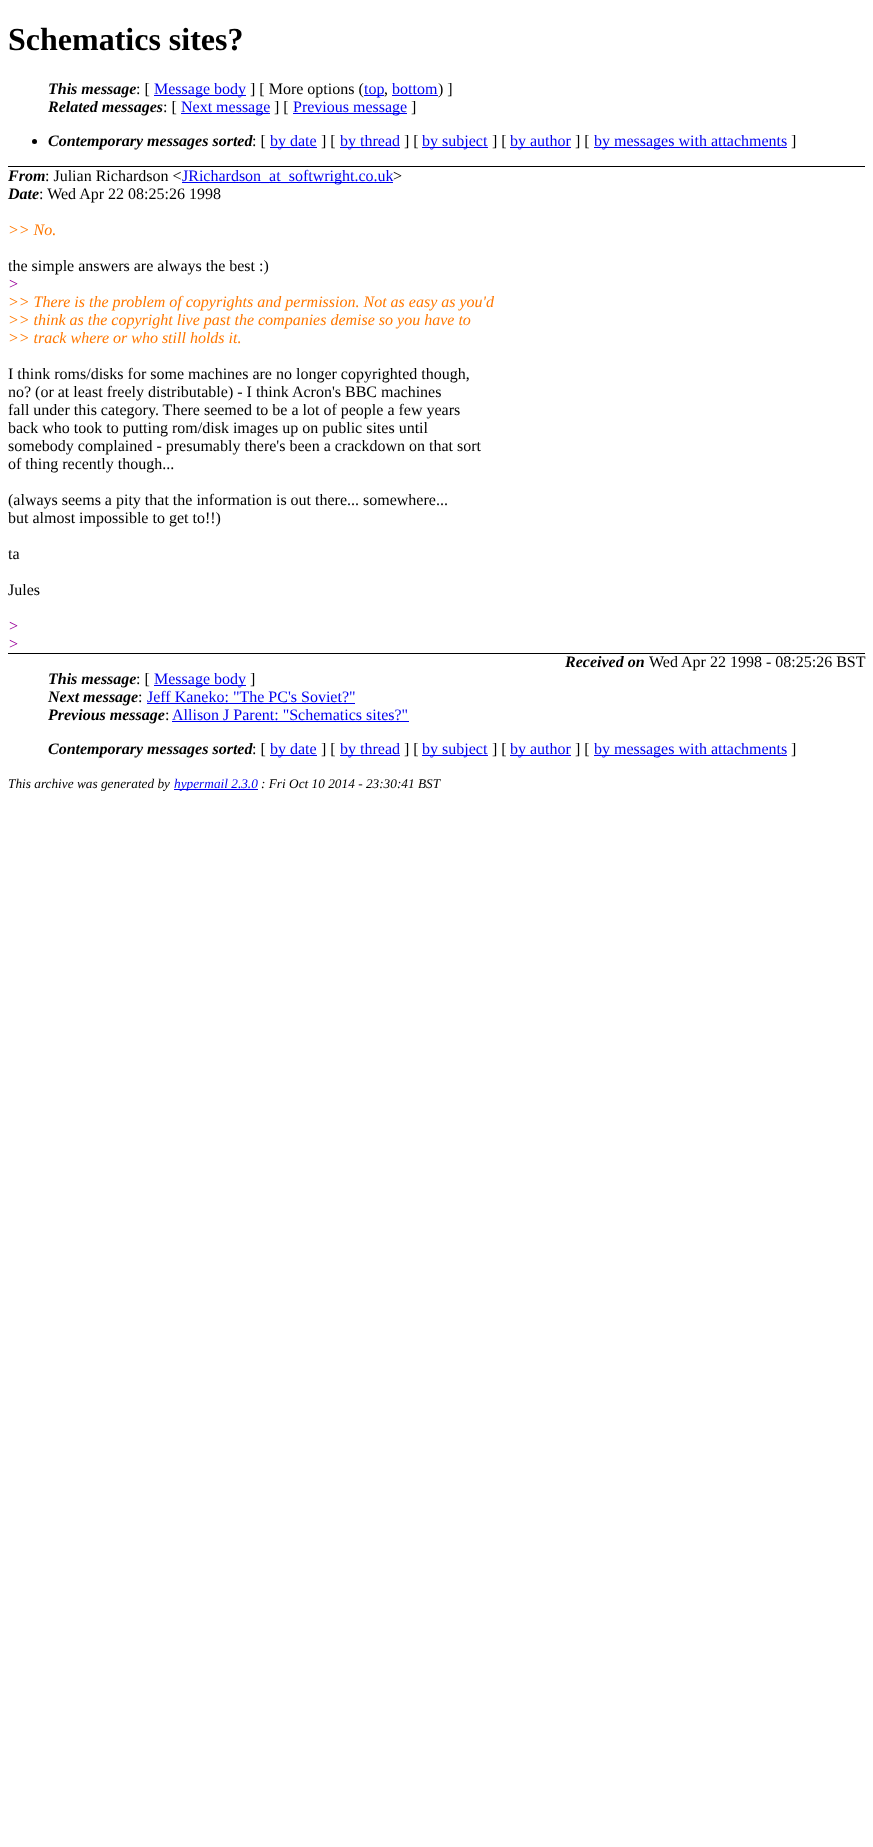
<svg xmlns="http://www.w3.org/2000/svg" xmlns:xlink="http://www.w3.org/1999/xlink" width="873" height="1847" viewBox="0 0 873 1847">
<style>
.cls-1{font:bold 32px Liberation Serif;fill:#000000}
.cls-2{font:italic bold 16px Liberation Serif;fill:#000000}
.cls-3{font:16px Liberation Serif;fill:#000000}
.cls-4{font:16px Liberation Serif;fill:#0000ee}
.cls-5{font:italic 16px Liberation Serif;fill:#ff7700}
.cls-6{font:italic 16px Liberation Serif;fill:#990099}
.cls-7{font:italic 13.3px Liberation Serif;fill:#000000}
.cls-8{font:italic 13.3px Liberation Serif;fill:#0000ee}
</style>
<rect width="100%" height="100%" fill="#ffffff"/>
<rect fill="#000000" x="8" y="166" width="857" height="1"/>
<rect fill="#0000ee" x="154" y="95" width="92" height="1"/>
<rect fill="#0000ee" x="364" y="95" width="20" height="1"/>
<rect fill="#0000ee" x="392" y="95" width="46" height="1"/>
<rect fill="#0000ee" x="181" y="113" width="89" height="1"/>
<rect fill="#0000ee" x="293" y="113" width="114" height="1"/>
<circle fill="#000000" cx="34.5" cy="141.5" r="2.5"/>
<rect fill="#0000ee" x="270" y="147" width="47" height="1"/>
<rect fill="#0000ee" x="340" y="147" width="60" height="1"/>
<rect fill="#0000ee" x="422" y="147" width="66" height="1"/>
<rect fill="#0000ee" x="510" y="147" width="61" height="1"/>
<rect fill="#0000ee" x="594" y="147" width="193" height="1"/>
<rect fill="#0000ee" x="182" y="182" width="211" height="1"/>
<rect fill="#000000" x="8" y="653" width="857" height="1"/>
<rect fill="#0000ee" x="154" y="685" width="92" height="1"/>
<rect fill="#0000ee" x="147" y="703" width="208" height="1"/>
<rect fill="#0000ee" x="172" y="721" width="237" height="1"/>
<rect fill="#0000ee" x="270" y="755" width="47" height="1"/>
<rect fill="#0000ee" x="340" y="755" width="60" height="1"/>
<rect fill="#0000ee" x="422" y="755" width="66" height="1"/>
<rect fill="#0000ee" x="510" y="755" width="61" height="1"/>
<rect fill="#0000ee" x="594" y="755" width="193" height="1"/>
<rect fill="#0000ee" x="174" y="789" width="84" height="1"/>
<text class="cls-1" x="8" y="50">Schematics sites?</text>
<text class="cls-2" x="48" y="94">This message</text>
<text class="cls-3" x="136" y="94">: [</text>
<text class="cls-4" x="154" y="94">Message body</text>
<text class="cls-3" x="250" y="94">] [ More options (</text>
<text class="cls-4" x="364" y="94">top</text>
<text class="cls-3" x="384" y="94">,</text>
<text class="cls-4" x="392" y="94">bottom</text>
<text class="cls-3" x="438" y="94">) ]</text>
<text class="cls-2" x="48" y="112">Related messages</text>
<text class="cls-3" x="163" y="112">: [</text>
<text class="cls-4" x="181" y="112">Next message</text>
<text class="cls-3" x="274" y="112">] [</text>
<text class="cls-4" x="293" y="112">Previous message</text>
<text class="cls-3" x="411" y="112">]</text>
<text class="cls-2" x="48" y="146">Contemporary messages sorted</text>
<text class="cls-3" x="252" y="146">: [</text>
<text class="cls-4" x="270" y="146">by date</text>
<text class="cls-3" x="321" y="146">] [</text>
<text class="cls-4" x="340" y="146">by thread</text>
<text class="cls-3" x="404" y="146">] [</text>
<text class="cls-4" x="422" y="146">by subject</text>
<text class="cls-3" x="492" y="146">] [</text>
<text class="cls-4" x="510" y="146">by author</text>
<text class="cls-3" x="575" y="146">] [</text>
<text class="cls-4" x="594" y="146">by messages with attachments</text>
<text class="cls-3" x="791" y="146">]</text>
<text class="cls-2" x="8" y="181">From</text>
<text class="cls-3" x="45" y="181">: Julian Richardson &lt;</text>
<text class="cls-4" x="182" y="181">JRichardson_at_softwright.co.uk</text>
<text class="cls-3" x="393" y="181">&gt;</text>
<text class="cls-2" x="8" y="199">Date</text>
<text class="cls-3" x="39" y="199">: Wed Apr 22 08:25:26 1998</text>
<text class="cls-5" x="8" y="235">&gt;&gt; No.</text>
<text class="cls-3" x="8" y="271">the simple answers are always the best :)</text>
<text class="cls-6" x="8" y="289">&gt;</text>
<text class="cls-5"><tspan x="8" y="307">&gt;&gt; There is the problem of copyrights and permission. Not as easy as you'd</tspan><tspan x="8" y="325">&gt;&gt; think as the copyright live past the companies demise so you have to</tspan><tspan x="8" y="343">&gt;&gt; track where or who still holds it.</tspan></text>
<text class="cls-3"><tspan x="8" y="379">I think roms/disks for some machines are no longer copyrighted though,</tspan><tspan x="8" y="397">no? (or at least freely distributable) - I think Acron's BBC machines</tspan><tspan x="8" y="415">fall under this category. There seemed to be a lot of people a few years</tspan><tspan x="8" y="433">back who took to putting rom/disk images up on public sites until</tspan><tspan x="8" y="451">somebody complained - presumably there's been a crackdown on that sort</tspan><tspan x="8" y="469">of thing recently though...</tspan></text>
<text class="cls-3"><tspan x="8" y="505">(always seems a pity that the information is out there... somewhere...</tspan><tspan x="8" y="523">but almost impossible to get to!!)</tspan></text>
<text class="cls-3" x="8" y="559">ta</text>
<text class="cls-3" x="8" y="595">Jules</text>
<text class="cls-6"><tspan x="8" y="631">&gt;</tspan><tspan x="8" y="649">&gt;</tspan></text>
<text class="cls-2" x="565" y="667">Received on</text>
<text class="cls-3" x="649" y="667">Wed Apr 22 1998 - 08:25:26 BST</text>
<text class="cls-2" x="48" y="684">This message</text>
<text class="cls-3" x="136" y="684">: [</text>
<text class="cls-4" x="154" y="684">Message body</text>
<text class="cls-3" x="250" y="684">]</text>
<text class="cls-2" x="48" y="702">Next message</text>
<text class="cls-3" x="138" y="702">:</text>
<text class="cls-4" x="147" y="702">Jeff Kaneko: "The PC's Soviet?"</text>
<text class="cls-2" x="48" y="720">Previous message</text>
<text class="cls-3" x="165" y="720">:</text>
<text class="cls-4" x="172" y="720">Allison J Parent: "Schematics sites?"</text>
<text class="cls-2" x="48" y="754">Contemporary messages sorted</text>
<text class="cls-3" x="252" y="754">: [</text>
<text class="cls-4" x="270" y="754">by date</text>
<text class="cls-3" x="321" y="754">] [</text>
<text class="cls-4" x="340" y="754">by thread</text>
<text class="cls-3" x="404" y="754">] [</text>
<text class="cls-4" x="422" y="754">by subject</text>
<text class="cls-3" x="492" y="754">] [</text>
<text class="cls-4" x="510" y="754">by author</text>
<text class="cls-3" x="575" y="754">] [</text>
<text class="cls-4" x="594" y="754">by messages with attachments</text>
<text class="cls-3" x="791" y="754">]</text>
<text class="cls-7" x="8" y="788">This archive was generated by</text>
<text class="cls-8" x="174" y="788">hypermail 2.3.0</text>
<text class="cls-7" x="261" y="788">: Fri Oct 10 2014 - 23:30:41 BST</text>
</svg>
